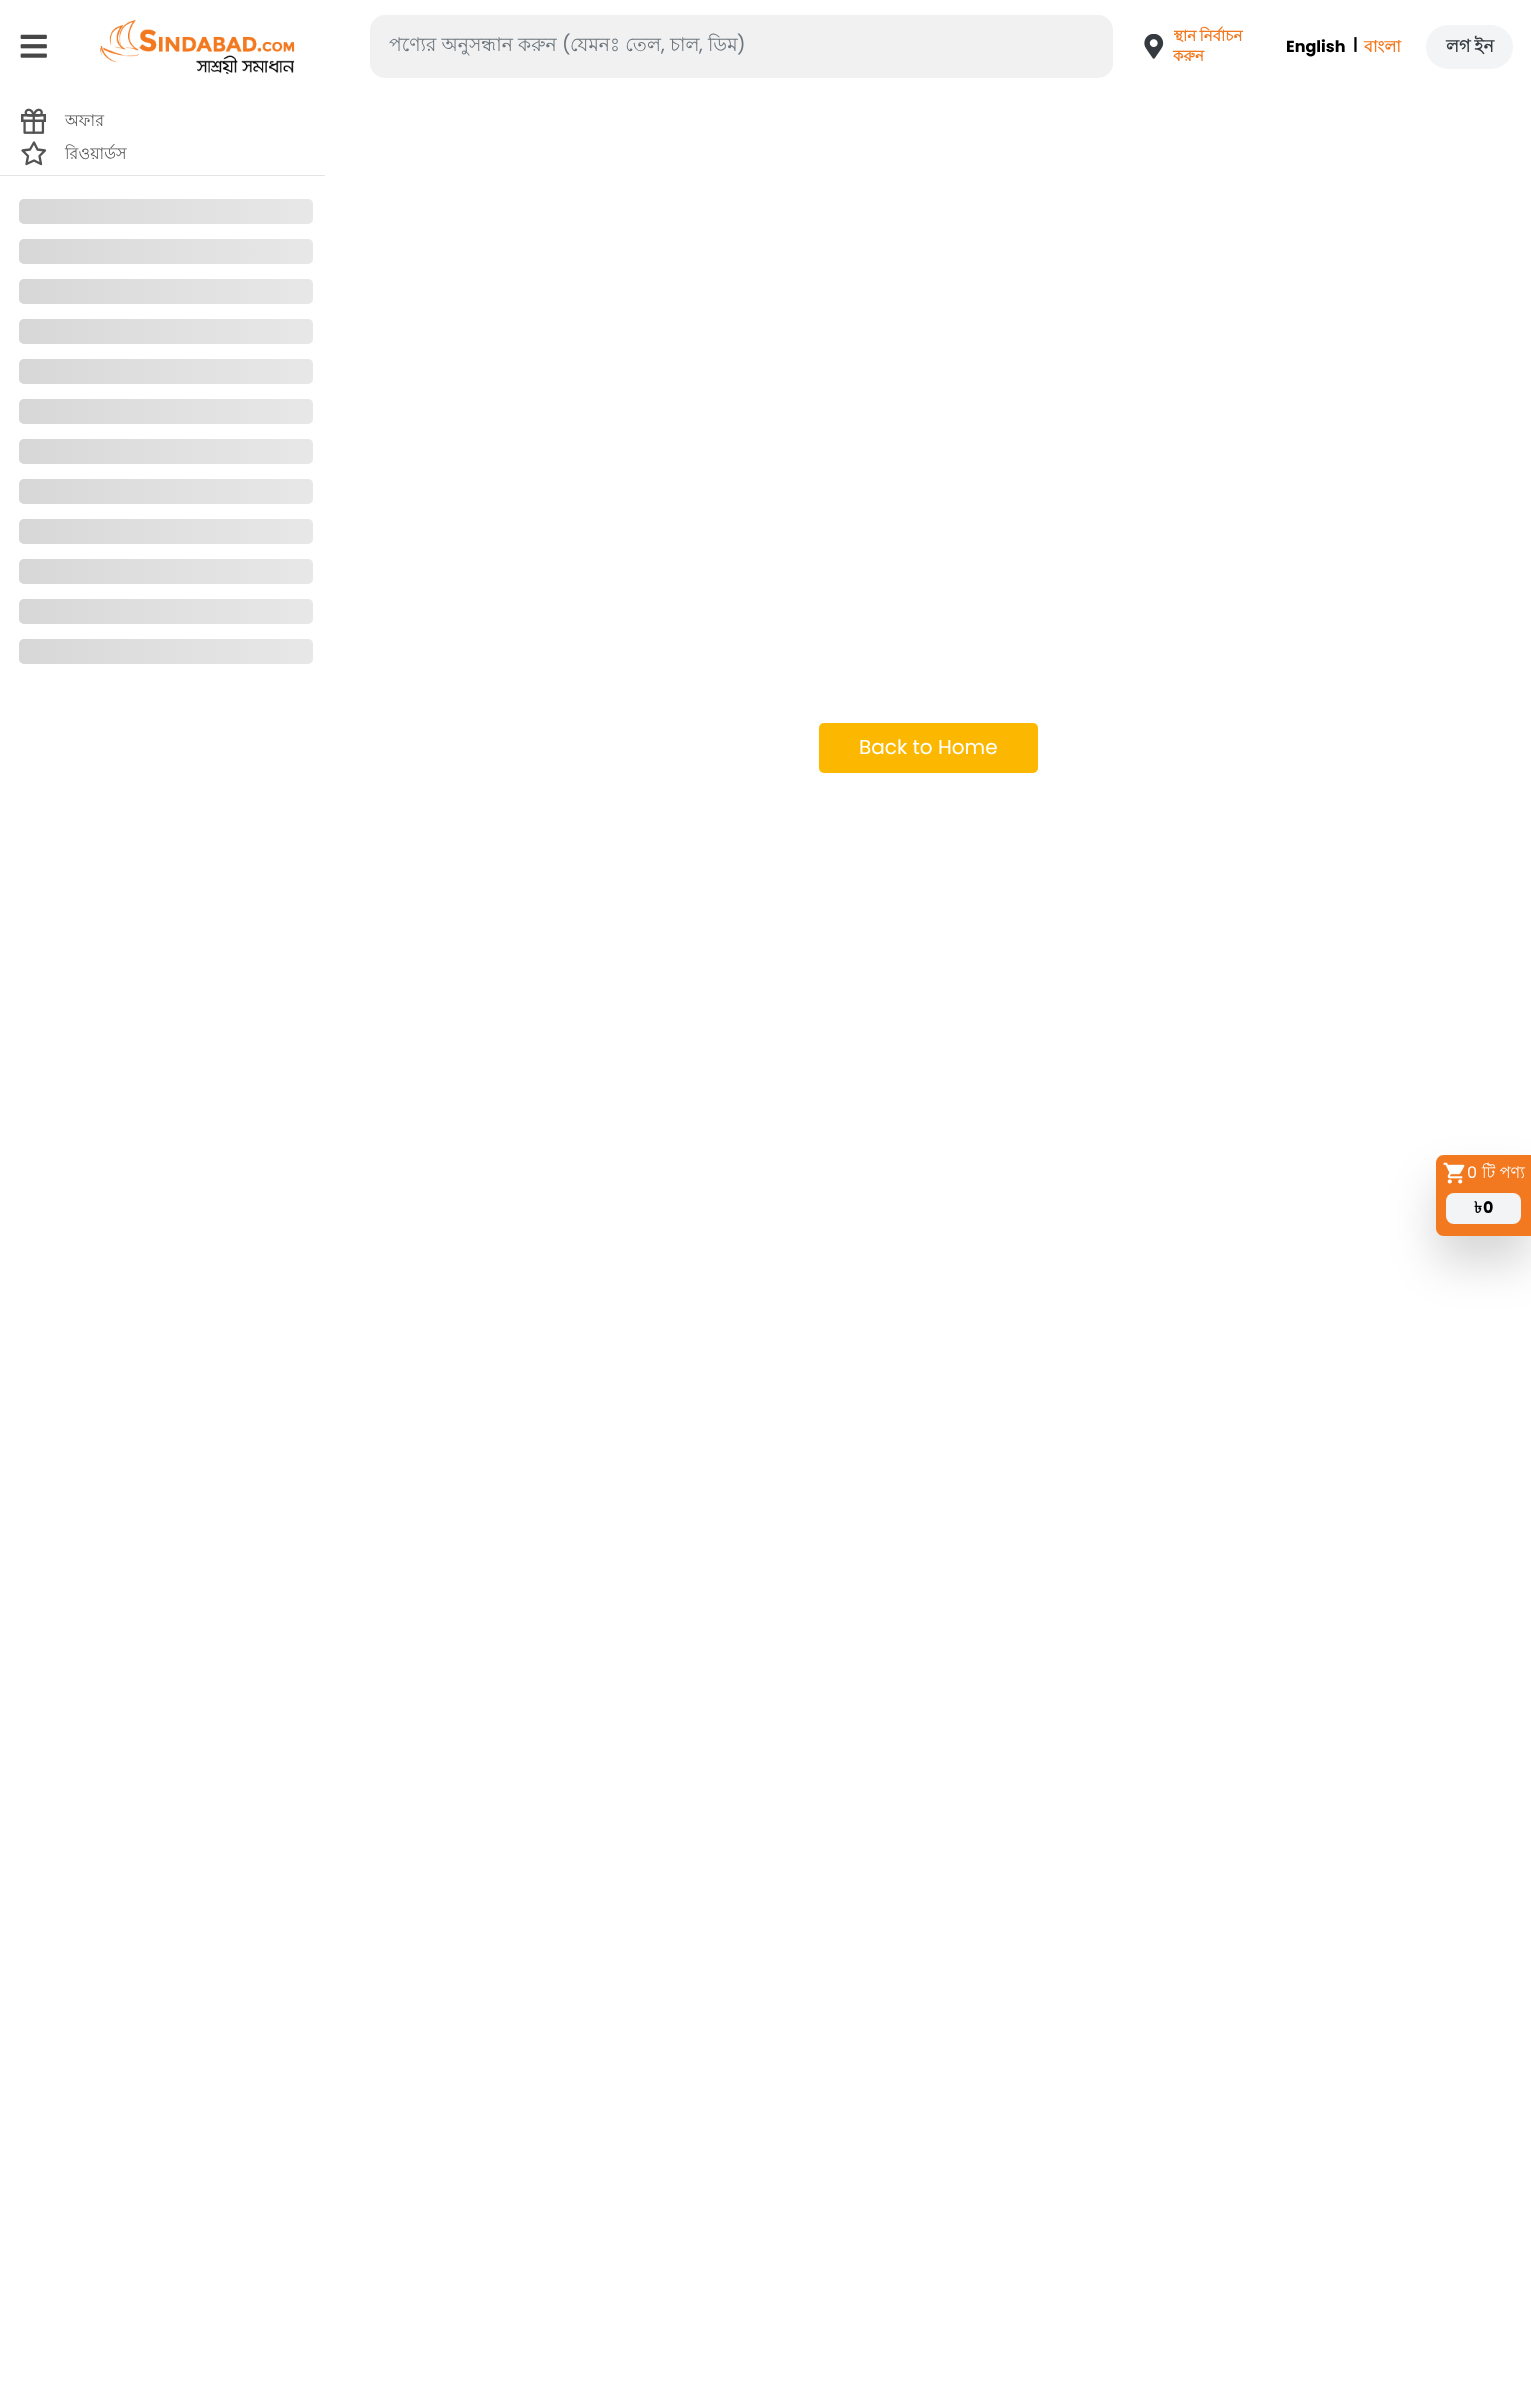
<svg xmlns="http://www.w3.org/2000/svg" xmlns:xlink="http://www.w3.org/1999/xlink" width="1531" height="2389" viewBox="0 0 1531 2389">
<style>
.cls-1{font:18.75px Lohit Bengali;fill:#6c757d}
.cls-2{font:18.75px Poppins;fill:#6c757d}
.cls-3{font:bold 15px Lohit Bengali;fill:#f37920}
.cls-4{font:bold 16px Poppins;fill:#000000}
.cls-5{font:600 16px Poppins;fill:#000000}
.cls-6{font:bold 16px Lohit Bengali;fill:#f37920}
.cls-7{font:bold 17.5px Lohit Bengali;fill:#343a40}
.cls-8{font:16px Lohit Bengali;fill:#565656}
.cls-9{font:20px Poppins;fill:#ffffff}
.cls-10{font:16px Poppins;fill:#ffffff}
.cls-11{font:16px Lohit Bengali;fill:#ffffff}
.cls-12{font:bold 16px Lohit Bengali;fill:#000000}
</style>
<defs>
<linearGradient id="g1" gradientUnits="userSpaceOnUse" x1="-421" y1="211" x2="754" y2="211"><stop offset="0.25" stop-color="#bebebe" stop-opacity="0.2"/><stop offset="0.37" stop-color="#818181" stop-opacity="0.24"/><stop offset="0.63" stop-color="#bebebe" stop-opacity="0.2"/></linearGradient>
<linearGradient id="g2" gradientUnits="userSpaceOnUse" x1="-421" y1="251" x2="754" y2="251"><stop offset="0.25" stop-color="#bebebe" stop-opacity="0.2"/><stop offset="0.37" stop-color="#818181" stop-opacity="0.24"/><stop offset="0.63" stop-color="#bebebe" stop-opacity="0.2"/></linearGradient>
<linearGradient id="g3" gradientUnits="userSpaceOnUse" x1="-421" y1="291" x2="754" y2="291"><stop offset="0.25" stop-color="#bebebe" stop-opacity="0.2"/><stop offset="0.37" stop-color="#818181" stop-opacity="0.24"/><stop offset="0.63" stop-color="#bebebe" stop-opacity="0.2"/></linearGradient>
<linearGradient id="g4" gradientUnits="userSpaceOnUse" x1="-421" y1="331" x2="754" y2="331"><stop offset="0.25" stop-color="#bebebe" stop-opacity="0.2"/><stop offset="0.37" stop-color="#818181" stop-opacity="0.24"/><stop offset="0.63" stop-color="#bebebe" stop-opacity="0.2"/></linearGradient>
<linearGradient id="g5" gradientUnits="userSpaceOnUse" x1="-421" y1="371" x2="754" y2="371"><stop offset="0.25" stop-color="#bebebe" stop-opacity="0.2"/><stop offset="0.37" stop-color="#818181" stop-opacity="0.24"/><stop offset="0.63" stop-color="#bebebe" stop-opacity="0.2"/></linearGradient>
<linearGradient id="g6" gradientUnits="userSpaceOnUse" x1="-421" y1="411" x2="754" y2="411"><stop offset="0.25" stop-color="#bebebe" stop-opacity="0.2"/><stop offset="0.37" stop-color="#818181" stop-opacity="0.24"/><stop offset="0.63" stop-color="#bebebe" stop-opacity="0.2"/></linearGradient>
<linearGradient id="g7" gradientUnits="userSpaceOnUse" x1="-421" y1="451" x2="754" y2="451"><stop offset="0.25" stop-color="#bebebe" stop-opacity="0.2"/><stop offset="0.37" stop-color="#818181" stop-opacity="0.24"/><stop offset="0.63" stop-color="#bebebe" stop-opacity="0.2"/></linearGradient>
<linearGradient id="g8" gradientUnits="userSpaceOnUse" x1="-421" y1="491" x2="754" y2="491"><stop offset="0.25" stop-color="#bebebe" stop-opacity="0.2"/><stop offset="0.37" stop-color="#818181" stop-opacity="0.24"/><stop offset="0.63" stop-color="#bebebe" stop-opacity="0.2"/></linearGradient>
<linearGradient id="g9" gradientUnits="userSpaceOnUse" x1="-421" y1="531" x2="754" y2="531"><stop offset="0.25" stop-color="#bebebe" stop-opacity="0.2"/><stop offset="0.37" stop-color="#818181" stop-opacity="0.24"/><stop offset="0.63" stop-color="#bebebe" stop-opacity="0.2"/></linearGradient>
<linearGradient id="g10" gradientUnits="userSpaceOnUse" x1="-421" y1="571" x2="754" y2="571"><stop offset="0.25" stop-color="#bebebe" stop-opacity="0.2"/><stop offset="0.37" stop-color="#818181" stop-opacity="0.24"/><stop offset="0.63" stop-color="#bebebe" stop-opacity="0.2"/></linearGradient>
<linearGradient id="g11" gradientUnits="userSpaceOnUse" x1="-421" y1="611" x2="754" y2="611"><stop offset="0.25" stop-color="#bebebe" stop-opacity="0.2"/><stop offset="0.37" stop-color="#818181" stop-opacity="0.24"/><stop offset="0.63" stop-color="#bebebe" stop-opacity="0.2"/></linearGradient>
<linearGradient id="g12" gradientUnits="userSpaceOnUse" x1="-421" y1="651" x2="754" y2="651"><stop offset="0.25" stop-color="#bebebe" stop-opacity="0.2"/><stop offset="0.37" stop-color="#818181" stop-opacity="0.24"/><stop offset="0.63" stop-color="#bebebe" stop-opacity="0.2"/></linearGradient>
<clipPath id="clip1"><rect x="1174" y="26" width="80" height="40"/></clipPath>
</defs>
<rect width="100%" height="100%" fill="#ffffff"/>
<image xlink:href="image0.png" x="20" y="34" width="27" height="24"/>
<image xlink:href="image1.png" x="100" y="19" width="195" height="56"/>
<rect fill="#f1f1f1" x="370" y="15" width="743" height="63" rx="15"/>
<image xlink:href="image2.png" x="1144" y="34" width="20" height="25"/>
<rect fill="#f3f4f6" x="1426" y="25" width="87" height="44" rx="22"/>
<rect fill="#e5e5e5" x="0" y="175" width="325" height="1"/>
<image xlink:href="image3.png" x="21" y="108" width="25" height="26"/>
<path fill="none" stroke="#535353" stroke-width="2.3" stroke-linecap="round" stroke-linejoin="round" d="M34 142.5L37.5 149.5L45 150.5L39.5 156L41 164L34 160.5L26.5 164L28 156L22.5 150.5L30 149.5Z"/>
<rect fill="#f2f2f2" x="19" y="199" width="294" height="25" rx="5"/>
<rect fill="url(#g1)" x="19" y="199" width="294" height="25" rx="5"/>
<rect fill="#f2f2f2" x="19" y="239" width="294" height="25" rx="5"/>
<rect fill="url(#g2)" x="19" y="239" width="294" height="25" rx="5"/>
<rect fill="#f2f2f2" x="19" y="279" width="294" height="25" rx="5"/>
<rect fill="url(#g3)" x="19" y="279" width="294" height="25" rx="5"/>
<rect fill="#f2f2f2" x="19" y="319" width="294" height="25" rx="5"/>
<rect fill="url(#g4)" x="19" y="319" width="294" height="25" rx="5"/>
<rect fill="#f2f2f2" x="19" y="359" width="294" height="25" rx="5"/>
<rect fill="url(#g5)" x="19" y="359" width="294" height="25" rx="5"/>
<rect fill="#f2f2f2" x="19" y="399" width="294" height="25" rx="5"/>
<rect fill="url(#g6)" x="19" y="399" width="294" height="25" rx="5"/>
<rect fill="#f2f2f2" x="19" y="439" width="294" height="25" rx="5"/>
<rect fill="url(#g7)" x="19" y="439" width="294" height="25" rx="5"/>
<rect fill="#f2f2f2" x="19" y="479" width="294" height="25" rx="5"/>
<rect fill="url(#g8)" x="19" y="479" width="294" height="25" rx="5"/>
<rect fill="#f2f2f2" x="19" y="519" width="294" height="25" rx="5"/>
<rect fill="url(#g9)" x="19" y="519" width="294" height="25" rx="5"/>
<rect fill="#f2f2f2" x="19" y="559" width="294" height="25" rx="5"/>
<rect fill="url(#g10)" x="19" y="559" width="294" height="25" rx="5"/>
<rect fill="#f2f2f2" x="19" y="599" width="294" height="25" rx="5"/>
<rect fill="url(#g11)" x="19" y="599" width="294" height="25" rx="5"/>
<rect fill="#f2f2f2" x="19" y="639" width="294" height="25" rx="5"/>
<rect fill="url(#g12)" x="19" y="639" width="294" height="25" rx="5"/>
<rect fill="#fcb800" x="819" y="723" width="219" height="50" rx="5"/>
<rect fill="#000000" fill-opacity="0.16" filter="blur(22.5px)" x="1436" y="1181" width="95" height="82" rx="8"/>
<path fill="#f37920" d="M1444 1155H1531V1236H1444C1439.5 1236 1436 1232.5 1436 1228V1163C1436 1158.5 1439.5 1155 1444 1155Z"/>
<image xlink:href="image4.png" x="1443" y="1162" width="22" height="22"/>
<rect fill="#f3f4f6" x="1446" y="1193" width="75" height="31" rx="8"/>
<text class="cls-1" x="389" y="51">পণ্যের অনুসন্ধান করুন</text>
<text class="cls-2" x="562" y="51">(</text>
<text class="cls-1" x="570" y="51">যেমনঃ তেল</text>
<text class="cls-2" x="661" y="51">,</text>
<text class="cls-1" x="670" y="51">চাল</text>
<text class="cls-2" x="699" y="51">,</text>
<text class="cls-1" x="708" y="51">ডিম</text>
<text class="cls-2" x="737" y="51">)</text>
<g clip-path="url(#clip1)">
<text class="cls-3" x="1173" y="41" word-spacing="-1">স্থান নির্বাচন</text>
</g>
<text class="cls-3" x="1173" y="61">করুন</text>
<text class="cls-4" x="1286" y="52">English</text>
<text class="cls-5" x="1353" y="50">|</text>
<text class="cls-6" x="1364" y="52">বাংলা</text>
<text class="cls-7" x="1446" y="52" word-spacing="-1">লগ ইন</text>
<text class="cls-8" x="65" y="126">অফার</text>
<text class="cls-8" x="65" y="159">রিওয়ার্ডস</text>
<text class="cls-9" x="859" y="754">Back to Home</text>
<text class="cls-10" x="1467" y="1178">0</text>
<text class="cls-11" x="1482" y="1178">টি পণ্য</text>
<text class="cls-12" x="1474" y="1213">৳</text>
<text class="cls-4" x="1483" y="1213">0</text>
</svg>
